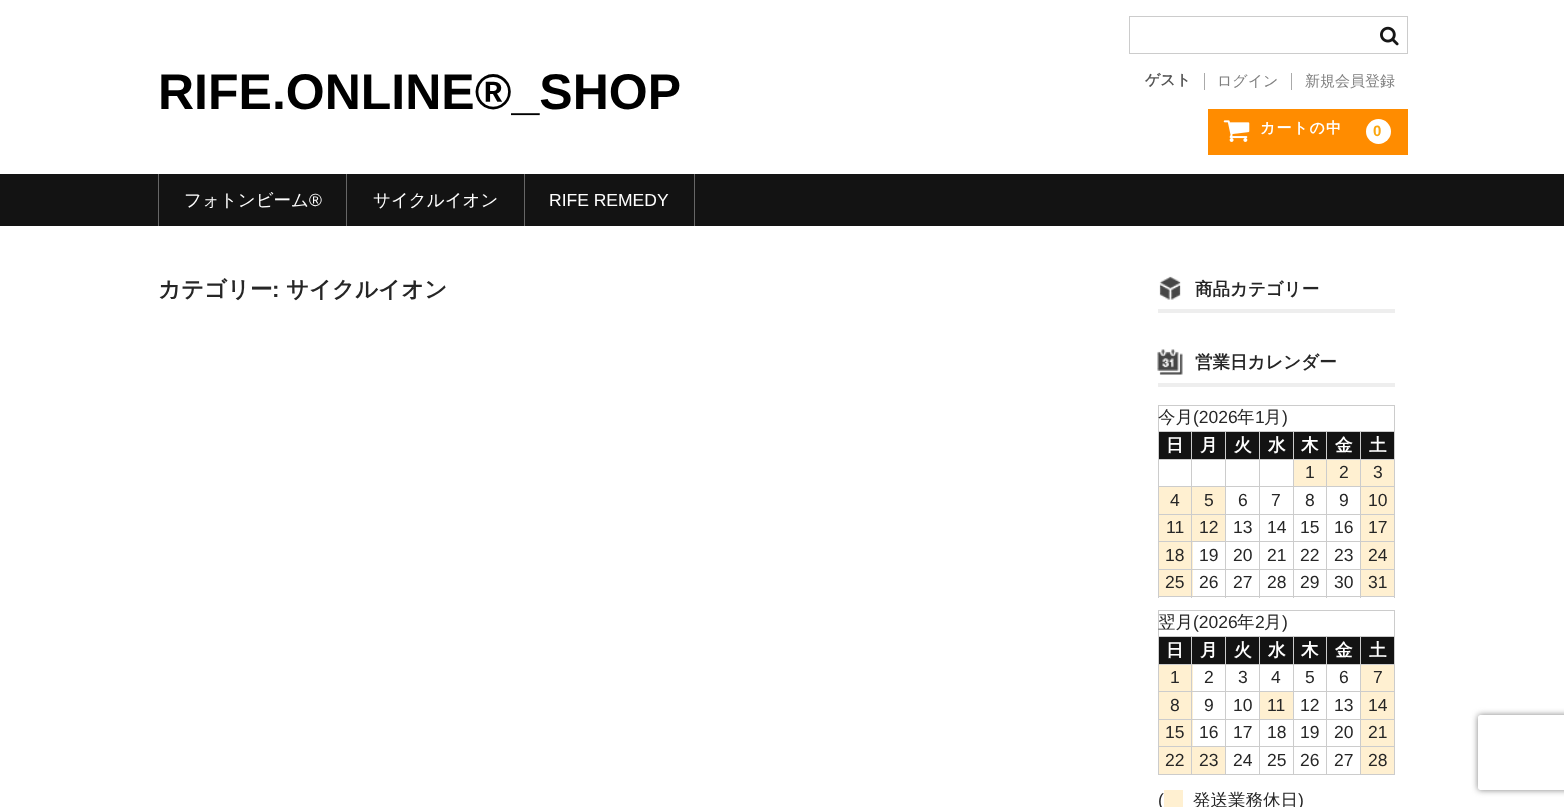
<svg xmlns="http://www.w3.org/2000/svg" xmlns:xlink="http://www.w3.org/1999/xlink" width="1564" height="807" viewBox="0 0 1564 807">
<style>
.cls-1{font:bold 50px Liberation Sans;fill:#000000}
.cls-2{font:bold 15px WenQuanYi Zen Hei;fill:#565656}
.cls-3{font:500 15px WenQuanYi Zen Hei;fill:#808080}
.cls-4{font:bold 15px WenQuanYi Zen Hei;letter-spacing:1.25px;fill:#ffffff}
.cls-5{font:bold 15px Liberation Sans;letter-spacing:1.25px;fill:#fba60d}
.cls-6{font:500 17.5px WenQuanYi Zen Hei;fill:#ffffff}
.cls-7{font:17.5px Liberation Sans;fill:#ffffff}
.cls-8{font:bold 22.5px WenQuanYi Zen Hei;fill:#262626}
.cls-9{font:bold 22.5px Liberation Sans;fill:#262626}
.cls-10{font:bold 17.5px WenQuanYi Zen Hei;fill:#262626}
.cls-11{font:500 17.5px WenQuanYi Zen Hei;fill:#262626}
.cls-12{font:17.5px Liberation Sans;fill:#262626}
.cls-13{font:bold 17.5px WenQuanYi Zen Hei;fill:#ffffff}
</style>
<defs>
<clipPath id="clip1"><path d="M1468 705H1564V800H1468ZM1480.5 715H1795.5C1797 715 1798 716 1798 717.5V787.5C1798 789 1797 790 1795.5 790H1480.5C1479 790 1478 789 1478 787.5V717.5C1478 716 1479 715 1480.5 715Z" clip-rule="evenodd"/></clipPath>
</defs>
<rect width="100%" height="100%" fill="#ffffff"/>
<rect fill="none" stroke="#cccccc" x="1129.5" y="16.5" width="278" height="37"/>
<image xlink:href="image0.png" x="1380" y="26" width="19" height="20"/>
<rect fill="#aaaaaa" x="1204" y="73" width="1" height="17"/>
<rect fill="#aaaaaa" x="1291" y="73" width="1" height="17"/>
<rect fill="#ff8c00" x="1208" y="109" width="200" height="46"/>
<image xlink:href="image1.png" x="1223" y="120" width="27" height="22"/>
<circle fill="#ffffff" cx="1378.5" cy="131.5" r="12.5"/>
<rect fill="#131313" x="0" y="174" width="1564" height="52"/>
<rect fill="#666666" x="346" y="174" width="1" height="52"/>
<rect fill="#666666" x="158" y="174" width="1" height="52"/>
<rect fill="#666666" x="524" y="174" width="1" height="52"/>
<rect fill="#666666" x="694" y="174" width="1" height="52"/>
<rect fill="#eeeeee" x="1158" y="309" width="237" height="4"/>
<image xlink:href="image2.png" x="1159" y="276" width="22" height="24"/>
<rect fill="#eeeeee" x="1158" y="383" width="237" height="4"/>
<image xlink:href="image3.png" x="1157" y="349" width="26" height="26"/>
<rect fill="#cccccc" x="1158" y="405" width="237" height="1"/>
<rect fill="#cccccc" x="1394" y="405" width="1" height="193"/>
<rect fill="#cccccc" x="1158" y="596" width="237" height="1"/>
<rect fill="#cccccc" x="1158" y="405" width="1" height="193"/>
<rect fill="#131313" x="1159" y="432" width="66" height="27"/>
<rect fill="#cccccc" x="1360" y="431" width="35" height="1"/>
<rect fill="#cccccc" x="1360" y="459" width="35" height="1"/>
<rect fill="#cccccc" x="1360" y="486" width="35" height="1"/>
<rect fill="#cccccc" x="1360" y="514" width="35" height="1"/>
<rect fill="#cccccc" x="1360" y="541" width="35" height="1"/>
<rect fill="#cccccc" x="1360" y="569" width="35" height="1"/>
<rect fill="#cccccc" x="1360" y="569" width="1" height="29"/>
<rect fill="#cccccc" x="1326" y="569" width="35" height="1"/>
<rect fill="#cccccc" x="1360" y="541" width="1" height="29"/>
<rect fill="#cccccc" x="1326" y="541" width="35" height="1"/>
<rect fill="#cccccc" x="1360" y="514" width="1" height="29"/>
<rect fill="#cccccc" x="1326" y="514" width="35" height="1"/>
<rect fill="#cccccc" x="1360" y="486" width="1" height="29"/>
<rect fill="#cccccc" x="1326" y="486" width="35" height="1"/>
<rect fill="#cccccc" x="1360" y="459" width="1" height="29"/>
<rect fill="#cccccc" x="1326" y="459" width="35" height="1"/>
<rect fill="#cccccc" x="1360" y="431" width="1" height="29"/>
<rect fill="#cccccc" x="1326" y="431" width="35" height="1"/>
<rect fill="#131313" x="1294" y="432" width="66" height="27"/>
<rect fill="#fff0d1" x="1294" y="460" width="66" height="26"/>
<rect fill="#cccccc" x="1326" y="569" width="1" height="29"/>
<rect fill="#cccccc" x="1293" y="569" width="35" height="1"/>
<rect fill="#cccccc" x="1326" y="541" width="1" height="29"/>
<rect fill="#cccccc" x="1293" y="541" width="35" height="1"/>
<rect fill="#cccccc" x="1326" y="514" width="1" height="29"/>
<rect fill="#cccccc" x="1293" y="514" width="35" height="1"/>
<rect fill="#cccccc" x="1326" y="486" width="1" height="29"/>
<rect fill="#cccccc" x="1293" y="486" width="35" height="1"/>
<rect fill="#cccccc" x="1326" y="459" width="1" height="29"/>
<rect fill="#cccccc" x="1293" y="459" width="35" height="1"/>
<rect fill="#cccccc" x="1326" y="431" width="1" height="29"/>
<rect fill="#cccccc" x="1293" y="431" width="35" height="1"/>
<rect fill="#cccccc" x="1293" y="569" width="1" height="29"/>
<rect fill="#cccccc" x="1259" y="569" width="35" height="1"/>
<rect fill="#cccccc" x="1293" y="541" width="1" height="29"/>
<rect fill="#cccccc" x="1259" y="541" width="35" height="1"/>
<rect fill="#cccccc" x="1293" y="514" width="1" height="29"/>
<rect fill="#cccccc" x="1259" y="514" width="35" height="1"/>
<rect fill="#cccccc" x="1293" y="486" width="1" height="29"/>
<rect fill="#cccccc" x="1259" y="486" width="35" height="1"/>
<rect fill="#cccccc" x="1293" y="459" width="1" height="29"/>
<rect fill="#cccccc" x="1259" y="459" width="35" height="1"/>
<rect fill="#cccccc" x="1293" y="431" width="1" height="29"/>
<rect fill="#cccccc" x="1259" y="431" width="35" height="1"/>
<rect fill="#cccccc" x="1259" y="569" width="1" height="29"/>
<rect fill="#cccccc" x="1225" y="569" width="35" height="1"/>
<rect fill="#cccccc" x="1259" y="541" width="1" height="29"/>
<rect fill="#cccccc" x="1225" y="541" width="35" height="1"/>
<rect fill="#cccccc" x="1259" y="514" width="1" height="29"/>
<rect fill="#cccccc" x="1225" y="514" width="35" height="1"/>
<rect fill="#cccccc" x="1259" y="486" width="1" height="29"/>
<rect fill="#cccccc" x="1225" y="486" width="35" height="1"/>
<rect fill="#cccccc" x="1259" y="459" width="1" height="29"/>
<rect fill="#cccccc" x="1225" y="459" width="35" height="1"/>
<rect fill="#cccccc" x="1259" y="431" width="1" height="29"/>
<rect fill="#cccccc" x="1225" y="431" width="35" height="1"/>
<rect fill="#cccccc" x="1225" y="569" width="1" height="29"/>
<rect fill="#cccccc" x="1191" y="569" width="35" height="1"/>
<rect fill="#cccccc" x="1225" y="541" width="1" height="29"/>
<rect fill="#cccccc" x="1191" y="541" width="35" height="1"/>
<rect fill="#cccccc" x="1225" y="514" width="1" height="29"/>
<rect fill="#cccccc" x="1191" y="514" width="35" height="1"/>
<rect fill="#cccccc" x="1225" y="486" width="1" height="29"/>
<rect fill="#cccccc" x="1191" y="486" width="35" height="1"/>
<rect fill="#cccccc" x="1225" y="459" width="1" height="29"/>
<rect fill="#cccccc" x="1191" y="459" width="35" height="1"/>
<rect fill="#cccccc" x="1225" y="431" width="1" height="29"/>
<rect fill="#cccccc" x="1191" y="431" width="35" height="1"/>
<rect fill="#fff0d1" x="1159" y="487" width="66" height="27"/>
<rect fill="#fff0d1" x="1159" y="515" width="66" height="26"/>
<rect fill="#fff0d1" x="1159" y="542" width="34" height="27"/>
<rect fill="#fff0d1" x="1159" y="570" width="34" height="26"/>
<rect fill="#cccccc" x="1191" y="569" width="1" height="29"/>
<rect fill="#cccccc" x="1158" y="569" width="35" height="1"/>
<rect fill="#cccccc" x="1191" y="541" width="1" height="29"/>
<rect fill="#cccccc" x="1158" y="541" width="35" height="1"/>
<rect fill="#cccccc" x="1191" y="514" width="1" height="29"/>
<rect fill="#cccccc" x="1158" y="514" width="35" height="1"/>
<rect fill="#cccccc" x="1191" y="486" width="1" height="29"/>
<rect fill="#cccccc" x="1158" y="486" width="35" height="1"/>
<rect fill="#cccccc" x="1191" y="459" width="1" height="29"/>
<rect fill="#cccccc" x="1158" y="459" width="35" height="1"/>
<rect fill="#cccccc" x="1191" y="431" width="1" height="29"/>
<rect fill="#cccccc" x="1158" y="431" width="35" height="1"/>
<rect fill="#131313" x="1226" y="432" width="33" height="27"/>
<rect fill="#131313" x="1260" y="432" width="33" height="27"/>
<rect fill="#131313" x="1361" y="432" width="33" height="27"/>
<rect fill="#fff0d1" x="1361" y="460" width="33" height="26"/>
<rect fill="#fff0d1" x="1361" y="487" width="33" height="27"/>
<rect fill="#fff0d1" x="1361" y="515" width="33" height="26"/>
<rect fill="#fff0d1" x="1361" y="542" width="33" height="27"/>
<rect fill="#fff0d1" x="1361" y="570" width="33" height="26"/>
<rect fill="#cccccc" x="1158" y="610" width="237" height="1"/>
<rect fill="#cccccc" x="1394" y="610" width="1" height="165"/>
<rect fill="#cccccc" x="1158" y="774" width="237" height="1"/>
<rect fill="#cccccc" x="1158" y="610" width="1" height="165"/>
<rect fill="#131313" x="1159" y="637" width="66" height="27"/>
<rect fill="#cccccc" x="1360" y="636" width="35" height="1"/>
<rect fill="#cccccc" x="1360" y="664" width="35" height="1"/>
<rect fill="#cccccc" x="1360" y="691" width="35" height="1"/>
<rect fill="#cccccc" x="1360" y="719" width="35" height="1"/>
<rect fill="#cccccc" x="1360" y="746" width="35" height="1"/>
<rect fill="#cccccc" x="1360" y="746" width="1" height="29"/>
<rect fill="#cccccc" x="1326" y="746" width="35" height="1"/>
<rect fill="#cccccc" x="1360" y="719" width="1" height="29"/>
<rect fill="#cccccc" x="1326" y="719" width="35" height="1"/>
<rect fill="#cccccc" x="1360" y="691" width="1" height="29"/>
<rect fill="#cccccc" x="1326" y="691" width="35" height="1"/>
<rect fill="#cccccc" x="1360" y="664" width="1" height="29"/>
<rect fill="#cccccc" x="1326" y="664" width="35" height="1"/>
<rect fill="#cccccc" x="1360" y="636" width="1" height="29"/>
<rect fill="#cccccc" x="1326" y="636" width="35" height="1"/>
<rect fill="#131313" x="1294" y="637" width="66" height="27"/>
<rect fill="#cccccc" x="1326" y="746" width="1" height="29"/>
<rect fill="#cccccc" x="1293" y="746" width="35" height="1"/>
<rect fill="#cccccc" x="1326" y="719" width="1" height="29"/>
<rect fill="#cccccc" x="1293" y="719" width="35" height="1"/>
<rect fill="#cccccc" x="1326" y="691" width="1" height="29"/>
<rect fill="#cccccc" x="1293" y="691" width="35" height="1"/>
<rect fill="#cccccc" x="1326" y="664" width="1" height="29"/>
<rect fill="#cccccc" x="1293" y="664" width="35" height="1"/>
<rect fill="#cccccc" x="1326" y="636" width="1" height="29"/>
<rect fill="#cccccc" x="1293" y="636" width="35" height="1"/>
<rect fill="#cccccc" x="1293" y="746" width="1" height="29"/>
<rect fill="#cccccc" x="1259" y="746" width="35" height="1"/>
<rect fill="#cccccc" x="1293" y="719" width="1" height="29"/>
<rect fill="#cccccc" x="1259" y="719" width="35" height="1"/>
<rect fill="#cccccc" x="1293" y="691" width="1" height="29"/>
<rect fill="#cccccc" x="1259" y="691" width="35" height="1"/>
<rect fill="#cccccc" x="1293" y="664" width="1" height="29"/>
<rect fill="#cccccc" x="1259" y="664" width="35" height="1"/>
<rect fill="#cccccc" x="1293" y="636" width="1" height="29"/>
<rect fill="#cccccc" x="1259" y="636" width="35" height="1"/>
<rect fill="#cccccc" x="1259" y="746" width="1" height="29"/>
<rect fill="#cccccc" x="1225" y="746" width="35" height="1"/>
<rect fill="#cccccc" x="1259" y="719" width="1" height="29"/>
<rect fill="#cccccc" x="1225" y="719" width="35" height="1"/>
<rect fill="#cccccc" x="1259" y="691" width="1" height="29"/>
<rect fill="#cccccc" x="1225" y="691" width="35" height="1"/>
<rect fill="#cccccc" x="1259" y="664" width="1" height="29"/>
<rect fill="#cccccc" x="1225" y="664" width="35" height="1"/>
<rect fill="#cccccc" x="1259" y="636" width="1" height="29"/>
<rect fill="#cccccc" x="1225" y="636" width="35" height="1"/>
<rect fill="#cccccc" x="1225" y="746" width="1" height="29"/>
<rect fill="#cccccc" x="1191" y="746" width="35" height="1"/>
<rect fill="#cccccc" x="1225" y="719" width="1" height="29"/>
<rect fill="#cccccc" x="1191" y="719" width="35" height="1"/>
<rect fill="#cccccc" x="1225" y="691" width="1" height="29"/>
<rect fill="#cccccc" x="1191" y="691" width="35" height="1"/>
<rect fill="#cccccc" x="1225" y="664" width="1" height="29"/>
<rect fill="#cccccc" x="1191" y="664" width="35" height="1"/>
<rect fill="#cccccc" x="1225" y="636" width="1" height="29"/>
<rect fill="#cccccc" x="1191" y="636" width="35" height="1"/>
<rect fill="#fff0d1" x="1159" y="665" width="34" height="26"/>
<rect fill="#fff0d1" x="1159" y="692" width="34" height="27"/>
<rect fill="#fff0d1" x="1159" y="720" width="34" height="26"/>
<rect fill="#fff0d1" x="1159" y="747" width="66" height="27"/>
<rect fill="#cccccc" x="1191" y="746" width="1" height="29"/>
<rect fill="#cccccc" x="1158" y="746" width="35" height="1"/>
<rect fill="#cccccc" x="1191" y="719" width="1" height="29"/>
<rect fill="#cccccc" x="1158" y="719" width="35" height="1"/>
<rect fill="#cccccc" x="1191" y="691" width="1" height="29"/>
<rect fill="#cccccc" x="1158" y="691" width="35" height="1"/>
<rect fill="#cccccc" x="1191" y="664" width="1" height="29"/>
<rect fill="#cccccc" x="1158" y="664" width="35" height="1"/>
<rect fill="#cccccc" x="1191" y="636" width="1" height="29"/>
<rect fill="#cccccc" x="1158" y="636" width="35" height="1"/>
<rect fill="#131313" x="1226" y="637" width="33" height="27"/>
<rect fill="#131313" x="1260" y="637" width="33" height="27"/>
<rect fill="#131313" x="1361" y="637" width="33" height="27"/>
<rect fill="#fff0d1" x="1361" y="665" width="33" height="26"/>
<rect fill="#fff0d1" x="1260" y="692" width="33" height="27"/>
<rect fill="#fff0d1" x="1361" y="692" width="33" height="27"/>
<rect fill="#fff0d1" x="1361" y="720" width="33" height="26"/>
<rect fill="#fff0d1" x="1361" y="747" width="33" height="27"/>
<rect fill="#fff0d1" x="1164" y="790" width="19" height="17"/>
<g clip-path="url(#clip1)">
<rect fill="#808080" filter="blur(3px)" x="1478" y="715" width="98" height="75" rx="2.5"/>
</g>
<text class="cls-1" x="158" y="109">RIFE.ONLINE®_SHOP</text>
<text class="cls-2" x="1145" y="85">ゲスト</text>
<text class="cls-3" x="1217" y="86">ログイン</text>
<text class="cls-3" x="1305" y="86">新規会員登録</text>
<text class="cls-4" x="1260" y="133">カートの中</text>
<text class="cls-5" x="1373" y="136">0</text>
<text class="cls-6" x="184" y="206">フォトンビーム</text>
<text class="cls-7" x="309" y="206">®︎</text>
<text class="cls-6" x="373" y="206">サイクルイオン</text>
<text class="cls-7" x="549" y="206">RIFE REMEDY</text>
<text class="cls-8" x="158" y="297">カテゴリー</text>
<text class="cls-9" x="272" y="297">:</text>
<text class="cls-8" x="286" y="297">サイクルイオン</text>
<text class="cls-10" x="1195" y="295">商品カテゴリー</text>
<text class="cls-10" x="1195" y="368">営業日カレンダー</text>
<text class="cls-11" x="1158" y="423">今月</text>
<text class="cls-12" x="1193" y="423">(2026</text>
<text class="cls-11" x="1237" y="423">年</text>
<text class="cls-12" x="1255" y="423">1</text>
<text class="cls-11" x="1264" y="423">月</text>
<text class="cls-12" x="1282" y="423">)</text>
<text class="cls-13" x="1166" y="451">日</text>
<text class="cls-13" x="1200" y="451">月</text>
<text class="cls-13" x="1234" y="451">火</text>
<text class="cls-13" x="1268" y="451">水</text>
<text class="cls-13" x="1301" y="451">木</text>
<text class="cls-13" x="1335" y="451">金</text>
<text class="cls-13" x="1369" y="451">土</text>
<text class="cls-12" x="1305" y="478">1</text>
<text class="cls-12" x="1339" y="478">2</text>
<text class="cls-12" x="1373" y="478">3</text>
<text class="cls-12" x="1170" y="506">4</text>
<text class="cls-12" x="1204" y="506">5</text>
<text class="cls-12" x="1238" y="506">6</text>
<text class="cls-12" x="1271" y="506">7</text>
<text class="cls-12" x="1305" y="506">8</text>
<text class="cls-12" x="1339" y="506">9</text>
<text class="cls-12" x="1368" y="506">10</text>
<text class="cls-12" x="1166" y="533">11</text>
<text class="cls-12" x="1199" y="533">12</text>
<text class="cls-12" x="1233" y="533">13</text>
<text class="cls-12" x="1267" y="533">14</text>
<text class="cls-12" x="1300" y="533">15</text>
<text class="cls-12" x="1334" y="533">16</text>
<text class="cls-12" x="1368" y="533">17</text>
<text class="cls-12" x="1165" y="561">18</text>
<text class="cls-12" x="1199" y="561">19</text>
<text class="cls-12" x="1233" y="561">20</text>
<text class="cls-12" x="1267" y="561">21</text>
<text class="cls-12" x="1300" y="561">22</text>
<text class="cls-12" x="1334" y="561">23</text>
<text class="cls-12" x="1368" y="561">24</text>
<text class="cls-12" x="1165" y="588">25</text>
<text class="cls-12" x="1199" y="588">26</text>
<text class="cls-12" x="1233" y="588">27</text>
<text class="cls-12" x="1267" y="588">28</text>
<text class="cls-12" x="1300" y="588">29</text>
<text class="cls-12" x="1334" y="588">30</text>
<text class="cls-12" x="1368" y="588">31</text>
<text class="cls-11" x="1158" y="628">翌月</text>
<text class="cls-12" x="1193" y="628">(2026</text>
<text class="cls-11" x="1237" y="628">年</text>
<text class="cls-12" x="1255" y="628">2</text>
<text class="cls-11" x="1264" y="628">月</text>
<text class="cls-12" x="1282" y="628">)</text>
<text class="cls-13" x="1166" y="656">日</text>
<text class="cls-13" x="1200" y="656">月</text>
<text class="cls-13" x="1234" y="656">火</text>
<text class="cls-13" x="1268" y="656">水</text>
<text class="cls-13" x="1301" y="656">木</text>
<text class="cls-13" x="1335" y="656">金</text>
<text class="cls-13" x="1369" y="656">土</text>
<text class="cls-12" x="1170" y="683">1</text>
<text class="cls-12" x="1204" y="683">2</text>
<text class="cls-12" x="1238" y="683">3</text>
<text class="cls-12" x="1271" y="683">4</text>
<text class="cls-12" x="1305" y="683">5</text>
<text class="cls-12" x="1339" y="683">6</text>
<text class="cls-12" x="1373" y="683">7</text>
<text class="cls-12" x="1170" y="711">8</text>
<text class="cls-12" x="1204" y="711">9</text>
<text class="cls-12" x="1233" y="711">10</text>
<text class="cls-12" x="1267" y="711">11</text>
<text class="cls-12" x="1300" y="711">12</text>
<text class="cls-12" x="1334" y="711">13</text>
<text class="cls-12" x="1368" y="711">14</text>
<text class="cls-12" x="1165" y="738">15</text>
<text class="cls-12" x="1199" y="738">16</text>
<text class="cls-12" x="1233" y="738">17</text>
<text class="cls-12" x="1267" y="738">18</text>
<text class="cls-12" x="1300" y="738">19</text>
<text class="cls-12" x="1334" y="738">20</text>
<text class="cls-12" x="1368" y="738">21</text>
<text class="cls-12" x="1165" y="766">22</text>
<text class="cls-12" x="1199" y="766">23</text>
<text class="cls-12" x="1233" y="766">24</text>
<text class="cls-12" x="1267" y="766">25</text>
<text class="cls-12" x="1300" y="766">26</text>
<text class="cls-12" x="1334" y="766">27</text>
<text class="cls-12" x="1368" y="766">28</text>
<text class="cls-12" x="1158" y="806">(</text>
<text class="cls-11" x="1193" y="806">発送業務休日</text>
<text class="cls-12" x="1298" y="806">)</text>
</svg>
